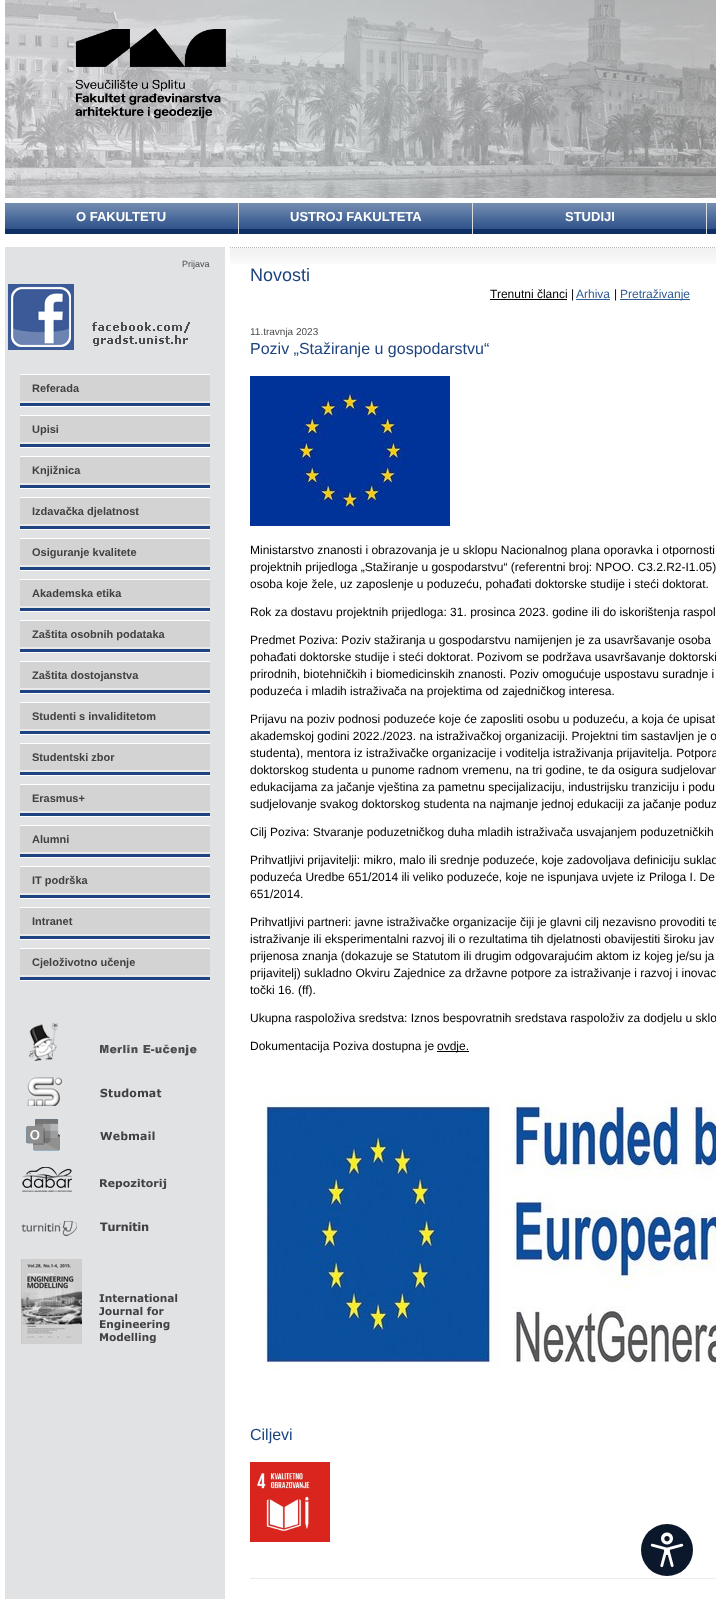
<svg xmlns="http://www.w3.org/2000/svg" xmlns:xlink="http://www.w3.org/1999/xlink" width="716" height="1599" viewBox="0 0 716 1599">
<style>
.cls-1{font:bold 13px Liberation Sans;fill:#ffffff}
.cls-2{font:9px Liberation Sans;fill:#4c4b4d}
.cls-3{font:bold 11px Liberation Sans;fill:#414042}
.cls-4{font:18px Liberation Sans;fill:#1d4480}
.cls-5{font:12px Liberation Sans;fill:#000000}
.cls-6{font:12px Liberation Sans;fill:#2f5c93}
.cls-7{font:10px Liberation Sans;fill:#4c4b4d}
.cls-8{font:16px Liberation Sans;fill:#1d4480}
</style>
<rect width="100%" height="100%" fill="#ffffff"/>
<image xlink:href="image0.png" x="5" y="0" width="711" height="198"/>
<image xlink:href="image1.png" x="75" y="28" width="151" height="91"/>
<image xlink:href="image2.png" x="5" y="203" width="233" height="31"/>
<rect fill="#ddddde" x="238" y="203" width="1" height="31"/>
<image xlink:href="image2.png" x="239" y="203" width="233" height="31"/>
<rect fill="#ddddde" x="472" y="203" width="1" height="31"/>
<image xlink:href="image2.png" x="473" y="203" width="233" height="31"/>
<rect fill="#ddddde" x="706" y="203" width="1" height="31"/>
<image xlink:href="image3.png" x="707" y="203" width="9" height="31"/>
<rect fill="#e1e2e4" x="5" y="247" width="220" height="1352"/>
<image xlink:href="image4.png" x="8" y="284" width="182" height="66"/>
<image xlink:href="image5.png" x="20" y="374" width="190" height="33"/>
<image xlink:href="image5.png" x="20" y="415" width="190" height="33"/>
<image xlink:href="image5.png" x="20" y="456" width="190" height="33"/>
<image xlink:href="image5.png" x="20" y="497" width="190" height="33"/>
<image xlink:href="image5.png" x="20" y="538" width="190" height="33"/>
<image xlink:href="image5.png" x="20" y="579" width="190" height="33"/>
<image xlink:href="image5.png" x="20" y="620" width="190" height="33"/>
<image xlink:href="image5.png" x="20" y="661" width="190" height="33"/>
<image xlink:href="image5.png" x="20" y="702" width="190" height="33"/>
<image xlink:href="image5.png" x="20" y="743" width="190" height="33"/>
<image xlink:href="image5.png" x="20" y="784" width="190" height="33"/>
<image xlink:href="image5.png" x="20" y="825" width="190" height="33"/>
<image xlink:href="image5.png" x="20" y="866" width="190" height="33"/>
<image xlink:href="image5.png" x="20" y="907" width="190" height="33"/>
<image xlink:href="image5.png" x="20" y="948" width="190" height="33"/>
<image xlink:href="image6.png" x="29" y="1023" width="168" height="38"/>
<image xlink:href="image7.png" x="27" y="1077" width="135" height="29"/>
<image xlink:href="image8.png" x="26" y="1119" width="129" height="32"/>
<image xlink:href="image9.png" x="22" y="1167" width="145" height="25"/>
<image xlink:href="image10.png" x="21" y="1221" width="128" height="15"/>
<image xlink:href="image11.png" x="21" y="1259" width="157" height="85"/>
<path fill="none" stroke="#b8b8b8" stroke-dasharray="1 1" d="M230 247.5H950"/>
<image xlink:href="image12.png" x="230" y="248" width="486" height="16"/>
<rect fill="#000000" x="490" y="299" width="77" height="1"/>
<rect fill="#2f5c93" x="576" y="299" width="34" height="1"/>
<rect fill="#2f5c93" x="620" y="299" width="70" height="1"/>
<image xlink:href="image13.png" x="250" y="376" width="200" height="150"/>
<rect fill="#000000" x="437" y="1051" width="32" height="1"/>
<image xlink:href="image14.png" x="265" y="1098" width="451" height="272"/>
<rect fill="#ececec" x="250" y="1578" width="466" height="1"/>
<image xlink:href="image15.png" x="250" y="1462" width="80" height="80"/>
<circle fill="#0b172a" cx="667" cy="1550" r="26"/>
<image xlink:href="image16.png" x="650" y="1532" width="34" height="36"/>
<text class="cls-1" x="76" y="221">O FAKULTETU</text>
<text class="cls-1" x="290" y="221">USTROJ FAKULTETA</text>
<text class="cls-1" x="565" y="221">STUDIJI</text>
<text class="cls-2" x="182" y="267">Prijava</text>
<text class="cls-3" x="32" y="392">Referada</text>
<text class="cls-3" x="32" y="433">Upisi</text>
<text class="cls-3" x="32" y="474">Knjižnica</text>
<text class="cls-3" x="32" y="515">Izdavačka djelatnost</text>
<text class="cls-3" x="32" y="556">Osiguranje kvalitete</text>
<text class="cls-3" x="32" y="597">Akademska etika</text>
<text class="cls-3" x="32" y="638">Zaštita osobnih podataka</text>
<text class="cls-3" x="32" y="679">Zaštita dostojanstva</text>
<text class="cls-3" x="32" y="720">Studenti s invaliditetom</text>
<text class="cls-3" x="32" y="761">Studentski zbor</text>
<text class="cls-3" x="32" y="802">Erasmus+</text>
<text class="cls-3" x="32" y="843">Alumni</text>
<text class="cls-3" x="32" y="884">IT podrška</text>
<text class="cls-3" x="32" y="925">Intranet</text>
<text class="cls-3" x="32" y="966">Cjeloživotno učenje</text>
<text class="cls-4" x="250" y="281">Novosti</text>
<text class="cls-5" x="490" y="298">Trenutni članci |</text>
<text class="cls-6" x="576" y="298">Arhiva</text>
<text class="cls-5" x="614" y="298">|</text>
<text class="cls-6" x="620" y="298">Pretraživanje</text>
<text class="cls-7" x="250" y="335">11.travnja 2023</text>
<text class="cls-8" x="250" y="354">Poziv „Stažiranje u gospodarstvu“</text>
<text class="cls-5"><tspan x="250" y="554">Ministarstvo znanosti i obrazovanja je u sklopu Nacionalnog plana oporavka i otpornosti</tspan><tspan x="250" y="571">projektnih prijedloga „Stažiranje u gospodarstvu“ (referentni broj: NPOO. C3.2.R2-I1.05)</tspan><tspan x="250" y="588">osoba koje žele, uz zaposlenje u poduzeću, pohađati doktorske studije i steći doktorat.</tspan></text>
<text class="cls-5" x="250" y="616">Rok za dostavu projektnih prijedloga: 31. prosinca 2023. godine ili do iskorištenja raspol</text>
<text class="cls-5"><tspan x="250" y="644">Predmet Poziva: Poziv stažiranja u gospodarstvu namijenjen je za usavršavanje osoba</tspan><tspan x="250" y="661">pohađati doktorske studije i steći doktorat. Pozivom se podržava usavršavanje doktorski</tspan><tspan x="250" y="678">prirodnih, biotehničkih i biomedicinskih znanosti. Poziv omogućuje uspostavu suradnje i</tspan><tspan x="250" y="695">poduzeća i mladih istraživača na projektima od zajedničkog interesa.</tspan></text>
<text class="cls-5"><tspan x="250" y="723">Prijavu na poziv podnosi poduzeće koje će zaposliti osobu u poduzeću, a koja će upisat</tspan><tspan x="250" y="740">akademskoj godini 2022./2023. na istraživačkoj organizaciji. Projektni tim sastavljen je o</tspan><tspan x="250" y="757">studenta), mentora iz istraživačke organizacije i voditelja istraživanja prijavitelja. Potpora</tspan><tspan x="250" y="774">doktorskog studenta u punome radnom vremenu, na tri godine, te da osigura sudjelovan</tspan><tspan x="250" y="791">edukacijama za jačanje vještina za pametnu specijalizaciju, industrijsku tranziciju i podu</tspan><tspan x="250" y="808">sudjelovanje svakog doktorskog studenta na najmanje jednoj edukaciji za jačanje poduz</tspan></text>
<text class="cls-5" x="250" y="836">Cilj Poziva: Stvaranje poduzetničkog duha mladih istraživača usvajanjem poduzetničkih</text>
<text class="cls-5"><tspan x="250" y="864">Prihvatljivi prijavitelji: mikro, malo ili srednje poduzeće, koje zadovoljava definiciju suklad</tspan><tspan x="250" y="881">poduzeća Uredbe 651/2014 ili veliko poduzeće, koje ne ispunjava uvjete iz Priloga I. De</tspan><tspan x="250" y="898">651/2014.</tspan></text>
<text class="cls-5"><tspan x="250" y="926">Prihvatljivi partneri: javne istraživačke organizacije čiji je glavni cilj nezavisno provoditi te</tspan><tspan x="250" y="943">istraživanje ili eksperimentalni razvoj ili o rezultatima tih djelatnosti obavijestiti široku jav</tspan><tspan x="250" y="960">prijenosa znanja (dokazuje se Statutom ili drugim odgovarajućim aktom iz kojeg je/su ja</tspan><tspan x="250" y="977">prijavitelj) sukladno Okviru Zajednice za državne potpore za istraživanje i razvoj i inovac</tspan><tspan x="250" y="994">točki 16. (ff).</tspan></text>
<text class="cls-5" x="250" y="1022">Ukupna raspoloživa sredstva: Iznos bespovratnih sredstava raspoloživ za dodjelu u sklo</text>
<text class="cls-5" x="250" y="1050">Dokumentacija Poziva dostupna je</text>
<text class="cls-5" x="437" y="1050">ovdje.</text>
<text class="cls-8" x="250" y="1440">Ciljevi</text>
</svg>
